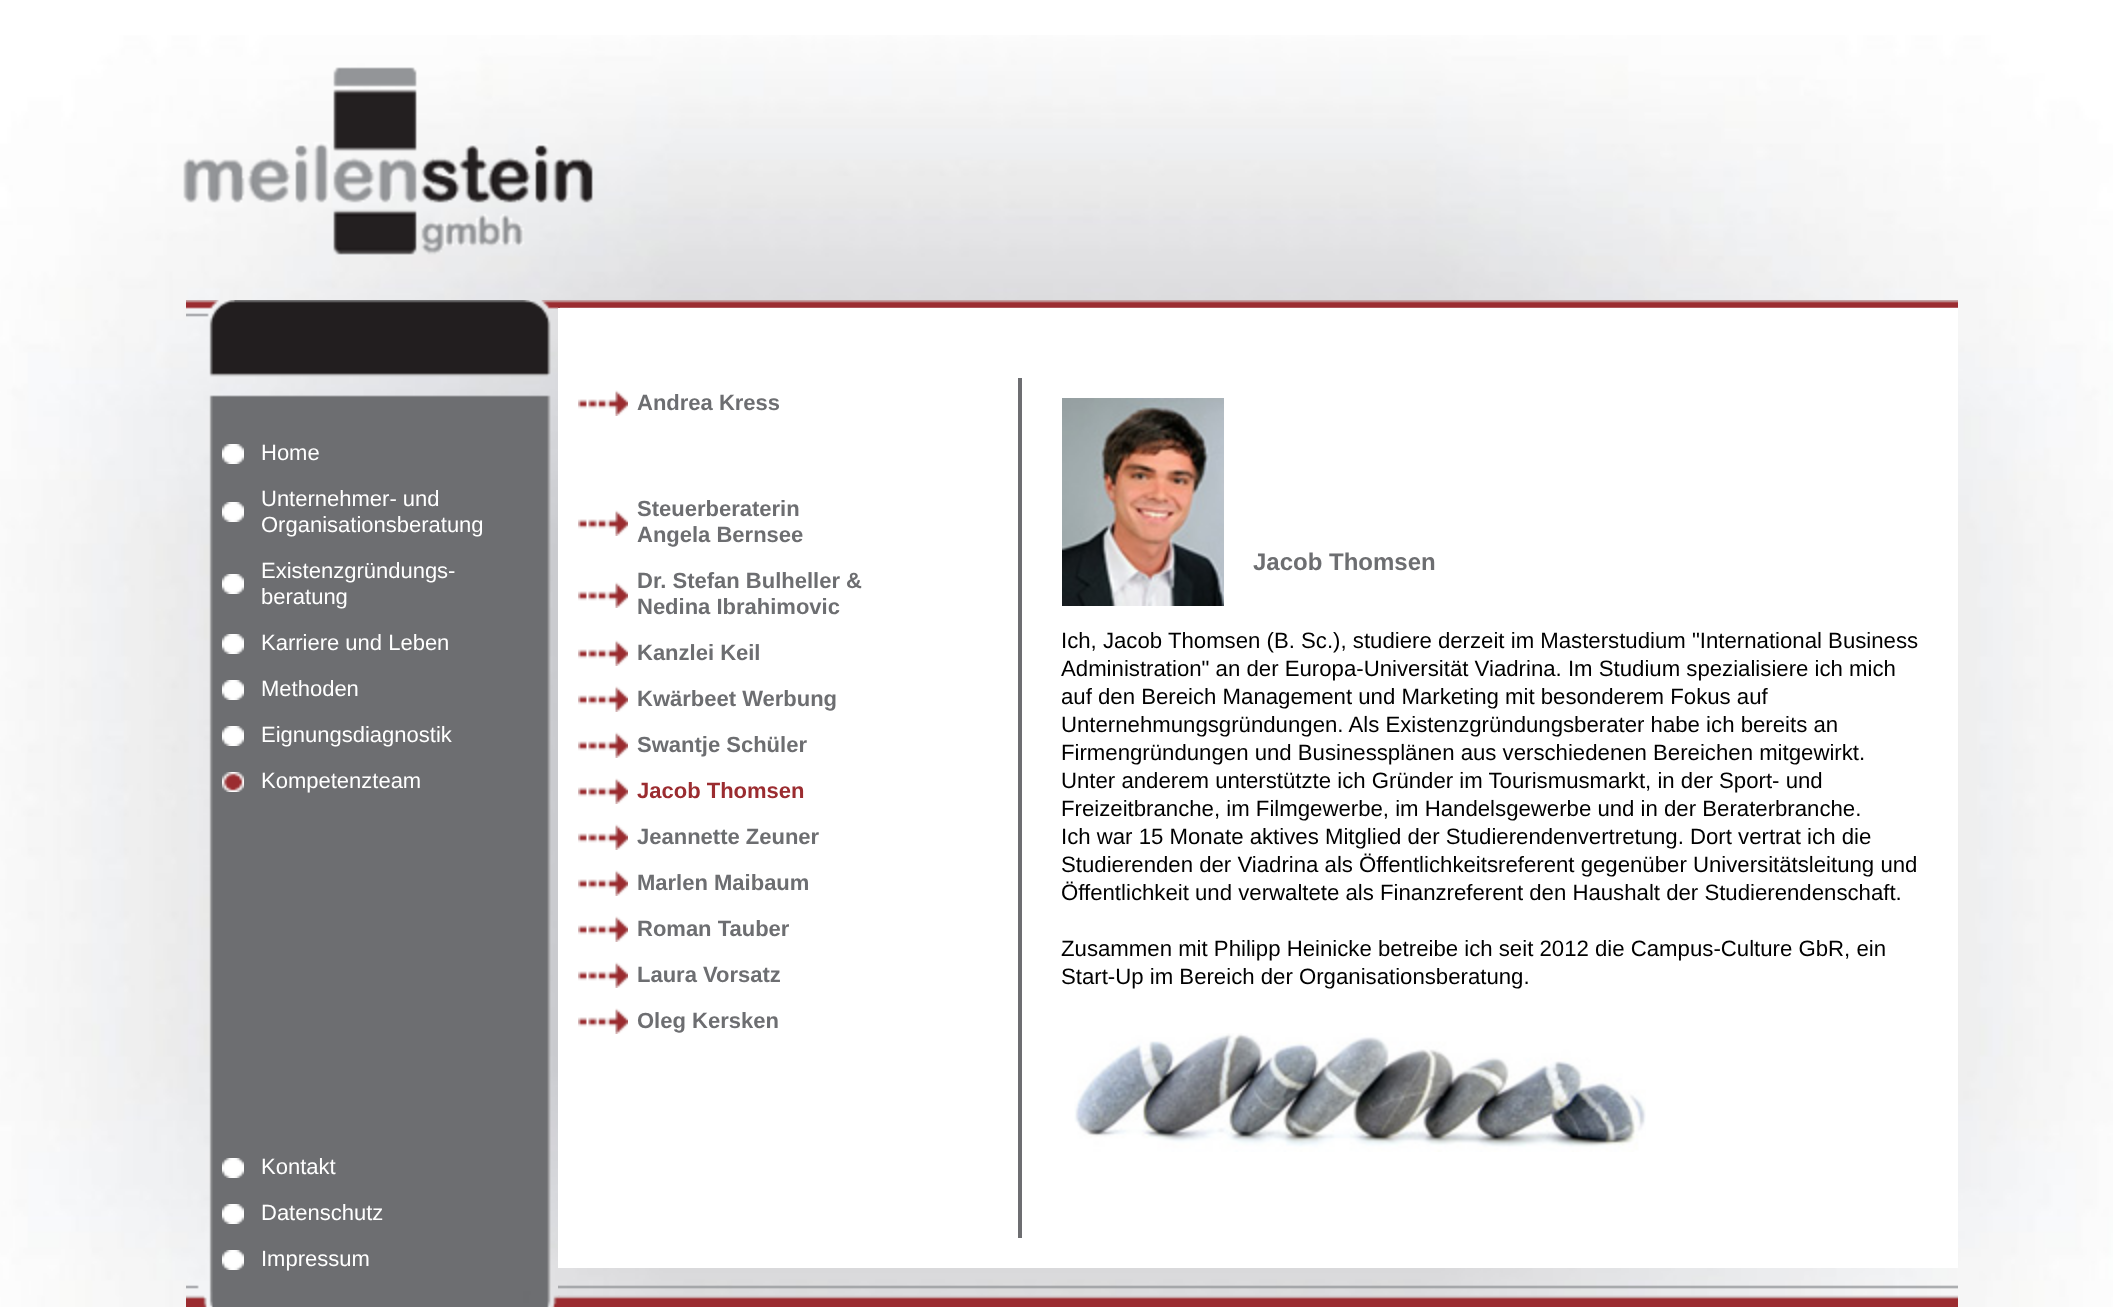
<svg xmlns="http://www.w3.org/2000/svg" xmlns:xlink="http://www.w3.org/1999/xlink" width="2113" height="1307" viewBox="0 0 2113 1307">
<style>
.cls-1{font:22px Liberation Sans;fill:#ffffff}
.cls-2{font:bold 22px Liberation Sans;fill:#6d6e71}
.cls-3{font:bold 22px Liberation Sans;fill:#9b2c30}
.cls-4{font:bold 24px Liberation Sans;fill:#6d6e71}
.cls-5{font:22.2px Liberation Sans;fill:#000000}
</style>
<rect width="100%" height="100%" fill="#ffffff"/>
<image xlink:href="image0.png" x="0" y="35" width="2113" height="1272"/>
<image xlink:href="image1.png" x="183" y="67" width="410" height="188"/>
<image xlink:href="image3.png" x="186" y="300" width="374" height="1007"/>
<image xlink:href="image2.png" x="558" y="300" width="1400" height="1007"/>
<image xlink:href="image4.png" x="222" y="444" width="22" height="20"/>
<image xlink:href="image4.png" x="222" y="502" width="22" height="20"/>
<image xlink:href="image4.png" x="222" y="574" width="22" height="20"/>
<image xlink:href="image4.png" x="222" y="634" width="22" height="20"/>
<image xlink:href="image4.png" x="222" y="680" width="22" height="20"/>
<image xlink:href="image4.png" x="222" y="726" width="22" height="20"/>
<image xlink:href="image5.png" x="222" y="772" width="22" height="20"/>
<image xlink:href="image4.png" x="222" y="1158" width="22" height="20"/>
<image xlink:href="image4.png" x="222" y="1204" width="22" height="20"/>
<image xlink:href="image4.png" x="222" y="1250" width="22" height="20"/>
<rect fill="#ffffff" x="558" y="308" width="1400" height="960"/>
<image xlink:href="image6.png" x="578" y="390" width="50" height="26"/>
<image xlink:href="image6.png" x="578" y="510" width="50" height="26"/>
<image xlink:href="image6.png" x="578" y="582" width="50" height="26"/>
<image xlink:href="image6.png" x="578" y="640" width="50" height="26"/>
<image xlink:href="image6.png" x="578" y="686" width="50" height="26"/>
<image xlink:href="image6.png" x="578" y="732" width="50" height="26"/>
<image xlink:href="image6.png" x="578" y="778" width="50" height="26"/>
<image xlink:href="image6.png" x="578" y="824" width="50" height="26"/>
<image xlink:href="image6.png" x="578" y="870" width="50" height="26"/>
<image xlink:href="image6.png" x="578" y="916" width="50" height="26"/>
<image xlink:href="image6.png" x="578" y="962" width="50" height="26"/>
<image xlink:href="image6.png" x="578" y="1008" width="50" height="26"/>
<rect fill="#6d6e71" x="1018" y="378" width="4" height="860"/>
<image xlink:href="image7.png" x="1062" y="398" width="162" height="208"/>
<image xlink:href="image8.png" x="1074" y="1033" width="572" height="119"/>
<text class="cls-1" x="261" y="460">Home</text>
<text class="cls-1"><tspan x="261" y="506">Unternehmer- und</tspan><tspan x="261" y="532">Organisationsberatung</tspan></text>
<text class="cls-1"><tspan x="261" y="578">Existenzgründungs-</tspan><tspan x="261" y="604">beratung</tspan></text>
<text class="cls-1" x="261" y="650">Karriere und Leben</text>
<text class="cls-1" x="261" y="696">Methoden</text>
<text class="cls-1" x="261" y="742">Eignungsdiagnostik</text>
<text class="cls-1" x="261" y="788">Kompetenzteam</text>
<text class="cls-1" x="261" y="1174">Kontakt</text>
<text class="cls-1" x="261" y="1220">Datenschutz</text>
<text class="cls-1" x="261" y="1266">Impressum</text>
<text class="cls-2" x="637" y="410">Andrea Kress</text>
<text class="cls-2"><tspan x="637" y="516">Steuerberaterin</tspan><tspan x="637" y="542">Angela Bernsee</tspan></text>
<text class="cls-2"><tspan x="637" y="588">Dr. Stefan Bulheller &amp;</tspan><tspan x="637" y="614">Nedina Ibrahimovic</tspan></text>
<text class="cls-2" x="637" y="660">Kanzlei Keil</text>
<text class="cls-2" x="637" y="706">Kwärbeet Werbung</text>
<text class="cls-2" x="637" y="752">Swantje Schüler</text>
<text class="cls-3" x="637" y="798">Jacob Thomsen</text>
<text class="cls-2" x="637" y="844">Jeannette Zeuner</text>
<text class="cls-2" x="637" y="890">Marlen Maibaum</text>
<text class="cls-2" x="637" y="936">Roman Tauber</text>
<text class="cls-2" x="637" y="982">Laura Vorsatz</text>
<text class="cls-2" x="637" y="1028">Oleg Kersken</text>
<text class="cls-4" x="1253" y="570">Jacob Thomsen</text>
<text class="cls-5"><tspan x="1061" y="648">Ich, Jacob Thomsen (B. Sc.), studiere derzeit im Masterstudium "International Business</tspan><tspan x="1061" y="676">Administration" an der Europa-Universität Viadrina. Im Studium spezialisiere ich mich</tspan><tspan x="1061" y="704">auf den Bereich Management und Marketing mit besonderem Fokus auf</tspan><tspan x="1061" y="732">Unternehmungsgründungen. Als Existenzgründungsberater habe ich bereits an</tspan><tspan x="1061" y="760">Firmengründungen und Businessplänen aus verschiedenen Bereichen mitgewirkt.</tspan><tspan x="1061" y="788">Unter anderem unterstützte ich Gründer im Tourismusmarkt, in der Sport- und</tspan><tspan x="1061" y="816">Freizeitbranche, im Filmgewerbe, im Handelsgewerbe und in der Beraterbranche.</tspan><tspan x="1061" y="844">Ich war 15 Monate aktives Mitglied der Studierendenvertretung. Dort vertrat ich die</tspan><tspan x="1061" y="872">Studierenden der Viadrina als Öffentlichkeitsreferent gegenüber Universitätsleitung und</tspan><tspan x="1061" y="900">Öffentlichkeit und verwaltete als Finanzreferent den Haushalt der Studierendenschaft.</tspan></text>
<text class="cls-5"><tspan x="1061" y="956">Zusammen mit Philipp Heinicke betreibe ich seit 2012 die Campus-Culture GbR, ein</tspan><tspan x="1061" y="984">Start-Up im Bereich der Organisationsberatung.</tspan></text>
</svg>
